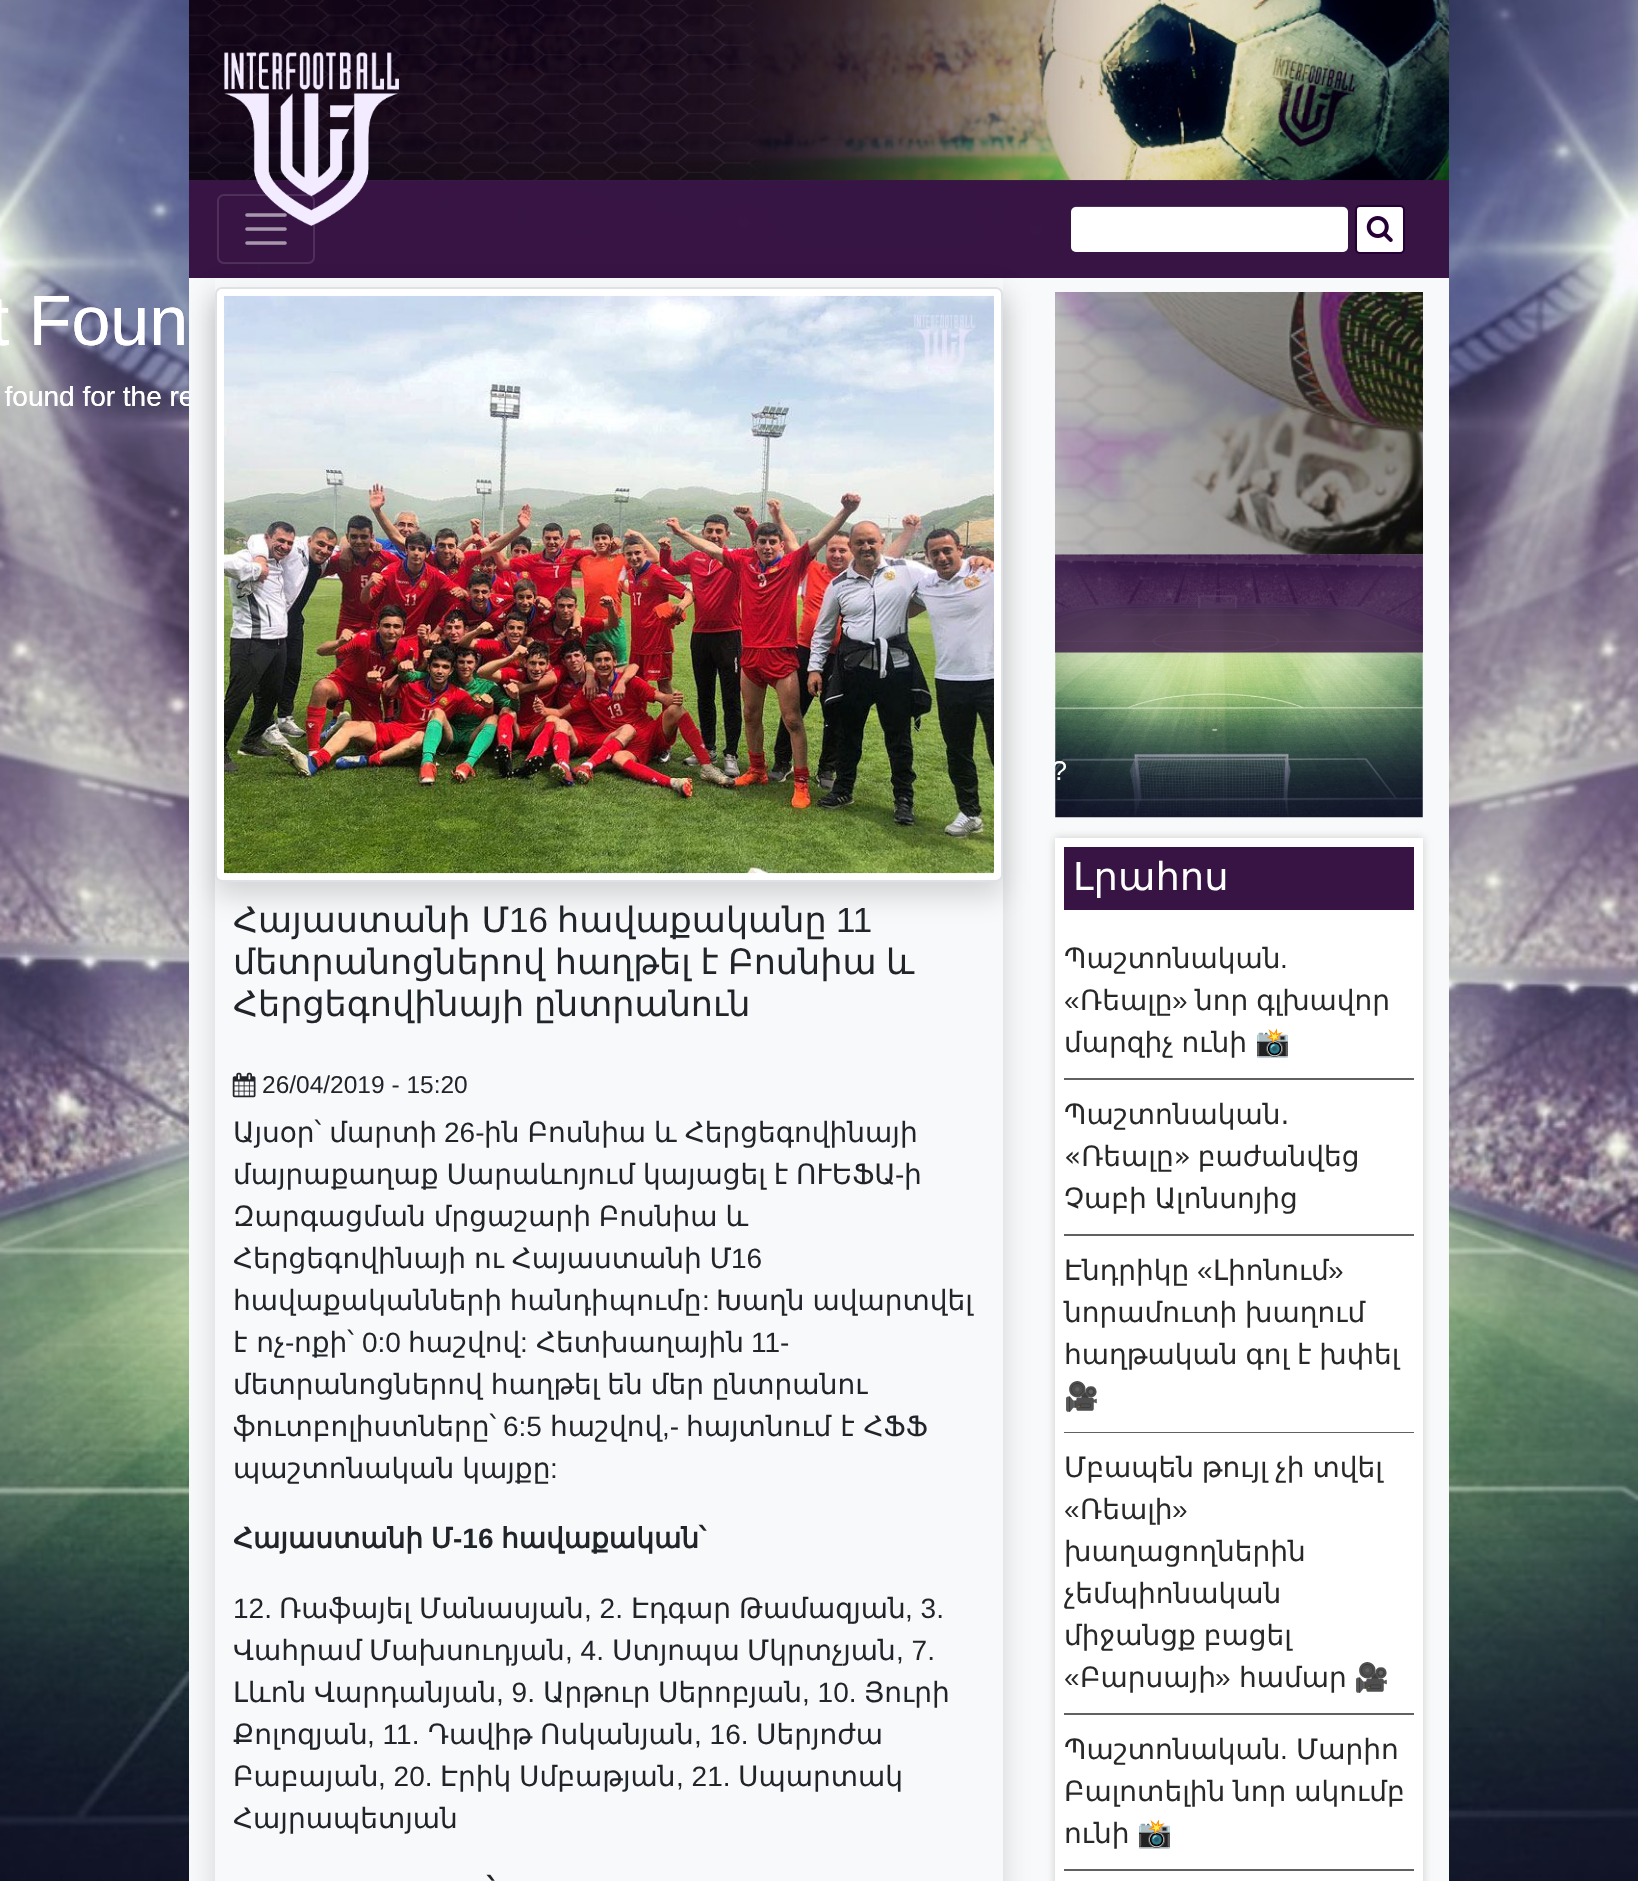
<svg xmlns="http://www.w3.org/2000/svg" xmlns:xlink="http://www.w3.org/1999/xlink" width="1638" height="1881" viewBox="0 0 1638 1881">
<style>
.cls-1{font:35px DejaVu Sans;fill:#212529}
.cls-2{font:35px Liberation Sans;fill:#212529}
.cls-3{font:24.5px Liberation Sans;fill:#212529}
.cls-4{font:28px DejaVu Sans;fill:#212529}
.cls-5{font:28px Liberation Sans;fill:#212529}
.cls-6{font:bold 28px DejaVu Sans;fill:#212529}
.cls-7{font:bold 28px Liberation Sans;fill:#212529}
.cls-8{font:38.5px DejaVu Sans;fill:#ffffff}
.cls-9{font:28px DejaVu Sans;fill:#292727}
.cls-10{font:28px Liberation Sans;fill:#292727}
.cls-11{font:28px Noto Color Emoji;fill:#292727}
</style>
<defs>
<clipPath id="clip1"><path d="M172 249H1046V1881H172ZM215 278H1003V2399H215Z" clip-rule="evenodd"/></clipPath>
</defs>
<rect width="100%" height="100%" fill="#ffffff"/>
<image xlink:href="image0.png" x="0" y="0" width="1638" height="1881"/>
<image xlink:href="image1.png" x="189" y="0" width="1260" height="181"/>
<rect fill="#371443" fill-opacity="0.8" x="189" y="180" width="1260" height="98"/>
<rect fill="none" stroke="#ffffff" stroke-opacity="0.1" stroke-width="2" x="218" y="195" width="96" height="68" rx="6"/>
<path fill="none" stroke="#ffffff" stroke-opacity="0.5" stroke-width="3.5" stroke-linecap="round" d="M247 215H285M247 229H285M247 243H285"/>
<image xlink:href="image2.png" x="224" y="52" width="175" height="174"/>
<rect fill="#ffffff" x="1071" y="207" width="277" height="45" rx="5"/>
<rect fill="#ffffff" stroke="#260034" stroke-width="2" x="1356" y="206" width="48" height="47" rx="4"/>
<image xlink:href="image3.png" x="1366" y="216" width="27" height="26"/>
<rect fill="#f8f9fa" x="189" y="278" width="1260" height="1603"/>
<rect fill="#000000" fill-opacity="0.15" filter="blur(14px)" x="215" y="301" width="788" height="595" rx="7"/>
<g clip-path="url(#clip1)">
<rect fill="#000000" fill-opacity="0.15" filter="blur(14px)" x="215" y="292" width="788" height="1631"/>
</g>
<rect fill="#ffffff" stroke="#dee2e6" stroke-width="2" x="216" y="288" width="786" height="593" rx="6"/>
<image xlink:href="image4.png" x="224" y="295" width="770" height="579"/>
<image xlink:href="image5.png" x="232" y="1072" width="24" height="26"/>
<image xlink:href="image6.png" x="1055" y="292" width="368" height="526"/>
<rect fill="#cccccc" filter="blur(4.5px)" x="1055" y="838" width="368" height="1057"/>
<rect fill="#ffffff" x="1055" y="838" width="368" height="1043"/>
<rect fill="#371444" x="1064" y="847" width="350" height="63"/>
<rect fill="#616161" x="1064" y="1078" width="350" height="2"/>
<rect fill="#616161" x="1064" y="1234" width="350" height="2"/>
<rect fill="#616161" x="1064" y="1432" width="350" height="1"/>
<rect fill="#616161" x="1064" y="1713" width="350" height="2"/>
<rect fill="#616161" x="1064" y="1869" width="350" height="2"/>
<text class="cls-1" x="233" y="932">Հայաստանի Մ</text>
<text class="cls-2" x="509" y="932">16</text>
<text class="cls-1" x="557" y="932">հավաքականը</text>
<text class="cls-2" x="836" y="932">11</text>
<text class="cls-1"><tspan x="233" y="974" word-spacing="-1.5">մետրանոցներով հաղթել է Բոսնիա և</tspan><tspan x="233" y="1016" word-spacing="-1.5">Հերցեգովինայի ընտրանուն</tspan></text>
<text class="cls-3" x="262" y="1093">26/04/2019 - 15:20</text>
<text class="cls-4" x="233" y="1142" word-spacing="-1">Այսօր՝ մարտի</text>
<text class="cls-5" x="444" y="1142">26-</text>
<text class="cls-4" x="484" y="1142" word-spacing="-1">ին Բոսնիա և Հերցեգովինայի</text>
<text class="cls-4" x="233" y="1184" word-spacing="-1">մայրաքաղաք Սարաևոյում կայացել է ՈՒԵՖԱ</text>
<text class="cls-5" x="895" y="1184">-</text>
<text class="cls-4" x="904" y="1184">ի</text>
<text class="cls-4"><tspan x="233" y="1226" word-spacing="-1">Զարգացման մրցաշարի Բոսնիա և</tspan><tspan x="233" y="1268" word-spacing="-1">Հերցեգովինայի ու Հայաստանի Մ</tspan></text>
<text class="cls-5" x="731" y="1268">16</text>
<text class="cls-4" x="233" y="1310" word-spacing="-1">հավաքականների հանդիպումը</text>
<text class="cls-5" x="702" y="1310">:</text>
<text class="cls-4" x="716" y="1310" word-spacing="-1">Խաղն ավարտվել</text>
<text class="cls-4" x="233" y="1352">է ոչ</text>
<text class="cls-5" x="285" y="1352">-</text>
<text class="cls-4" x="294" y="1352">ոքի՝</text>
<text class="cls-5" x="362" y="1352">0:0</text>
<text class="cls-4" x="408" y="1352">հաշվով</text>
<text class="cls-5" x="520" y="1352">:</text>
<text class="cls-4" x="536" y="1352">Հետխաղային</text>
<text class="cls-5" x="751" y="1352">11-</text>
<text class="cls-4"><tspan x="233" y="1394" word-spacing="-1">մետրանոցներով հաղթել են մեր ընտրանու</tspan><tspan x="233" y="1436">ֆուտբոլիստները՝</tspan></text>
<text class="cls-5" x="503" y="1436">6:5</text>
<text class="cls-4" x="550" y="1436">հաշվով</text>
<text class="cls-5" x="662" y="1436">,-</text>
<text class="cls-4" x="686" y="1436">հայտնում է ՀՖՖ</text>
<text class="cls-4" x="233" y="1478" word-spacing="-1">պաշտոնական կայքը</text>
<text class="cls-5" x="550" y="1478">:</text>
<text class="cls-6" x="233" y="1548" word-spacing="-1">Հայաստանի Մ</text>
<text class="cls-7" x="453" y="1548">-16</text>
<text class="cls-6" x="501" y="1548">հավաքական՝</text>
<text class="cls-5" x="233" y="1618">12.</text>
<text class="cls-4" x="279" y="1618">Ռաֆայել</text>
<text class="cls-4" x="419" y="1618">Մանասյան</text>
<text class="cls-5" x="584" y="1618">, 2.</text>
<text class="cls-4" x="631" y="1618">Էդգար</text>
<text class="cls-4" x="739" y="1618">Թամազյան</text>
<text class="cls-5" x="905" y="1618">, 3.</text>
<text class="cls-4" x="233" y="1660">Վահրամ</text>
<text class="cls-4" x="369" y="1660">Մախսուդյան</text>
<text class="cls-5" x="565" y="1660">, 4.</text>
<text class="cls-4" x="612" y="1660">Ստյոպա</text>
<text class="cls-4" x="747" y="1660">Մկրտչյան</text>
<text class="cls-5" x="896" y="1660">, 7.</text>
<text class="cls-4" x="233" y="1702">Լևոն</text>
<text class="cls-4" x="314" y="1702">Վարդանյան</text>
<text class="cls-5" x="496" y="1702">, 9.</text>
<text class="cls-4" x="543" y="1702">Արթուր</text>
<text class="cls-4" x="658" y="1702">Սերոբյան</text>
<text class="cls-5" x="802" y="1702">, 10.</text>
<text class="cls-4" x="864" y="1702">Յուրի</text>
<text class="cls-4" x="233" y="1744">Քոլոզյան</text>
<text class="cls-5" x="367" y="1744">, 11.</text>
<text class="cls-4" x="428" y="1744">Դավիթ</text>
<text class="cls-4" x="540" y="1744">Ոսկանյան</text>
<text class="cls-5" x="694" y="1744">, 16.</text>
<text class="cls-4" x="756" y="1744">Սերյոժա</text>
<text class="cls-4" x="233" y="1786">Բաբայան</text>
<text class="cls-5" x="378" y="1786">, 20.</text>
<text class="cls-4" x="440" y="1786">Էրիկ</text>
<text class="cls-4" x="519" y="1786">Սմբաթյան</text>
<text class="cls-5" x="676" y="1786">, 21.</text>
<text class="cls-4" x="738" y="1786">Սպարտակ</text>
<text class="cls-4" x="233" y="1828">Հայրապետյան</text>
<text class="cls-6" x="487" y="1898">՝</text>
<text class="cls-8" x="1073" y="890">Լրահոս</text>
<text class="cls-9" x="1064" y="968">Պաշտոնական</text>
<text class="cls-10" x="1280" y="968">.</text>
<text class="cls-10" x="1064" y="1010">«</text>
<text class="cls-9" x="1080" y="1010">Ռեալը</text>
<text class="cls-10" x="1172" y="1010">»</text>
<text class="cls-9" x="1195" y="1010" word-spacing="-1">նոր գլխավոր</text>
<text class="cls-9" x="1064" y="1052" word-spacing="-1">մարզիչ ունի</text>
<text class="cls-11" x="1255" y="1052">📸</text>
<text class="cls-9"><tspan x="1064" y="1124">Պաշտոնական.</tspan><tspan x="1064" y="1166" word-spacing="-2">«Ռեալը» բաժանվեց</tspan><tspan x="1064" y="1208" word-spacing="-1">Չաբի Ալոնսոյից</tspan></text>
<text class="cls-9" x="1064" y="1280">Էնդրիկը</text>
<text class="cls-10" x="1197" y="1280">«</text>
<text class="cls-9" x="1213" y="1280">Լիոնում</text>
<text class="cls-10" x="1328" y="1280">»</text>
<text class="cls-9"><tspan x="1064" y="1322" word-spacing="-1">նորամուտի խաղում</tspan><tspan x="1064" y="1364" word-spacing="-1">հաղթական գոլ է խփել</tspan></text>
<text class="cls-11" x="1064" y="1406">🎥</text>
<text class="cls-9" x="1064" y="1477" word-spacing="-1">Մբապեն թույլ չի տվել</text>
<text class="cls-10" x="1064" y="1519">«</text>
<text class="cls-9" x="1080" y="1519">Ռեալի</text>
<text class="cls-10" x="1172" y="1519">»</text>
<text class="cls-9"><tspan x="1064" y="1561">խաղացողներին</tspan><tspan x="1064" y="1603">չեմպիոնական</tspan><tspan x="1064" y="1645" word-spacing="-1">միջանցք բացել</tspan></text>
<text class="cls-10" x="1064" y="1687">«</text>
<text class="cls-9" x="1080" y="1687">Բարսայի</text>
<text class="cls-10" x="1215" y="1687">»</text>
<text class="cls-9" x="1239" y="1687">համար</text>
<text class="cls-11" x="1354" y="1687">🎥</text>
<text class="cls-9" x="1064" y="1759">Պաշտոնական</text>
<text class="cls-10" x="1280" y="1759">.</text>
<text class="cls-9" x="1296" y="1759">Մարիո</text>
<text class="cls-9"><tspan x="1064" y="1801" word-spacing="-1">Բալոտելին նոր ակումբ</tspan><tspan x="1064" y="1843">ունի</tspan></text>
<text class="cls-11" x="1137" y="1843">📸</text>
</svg>
